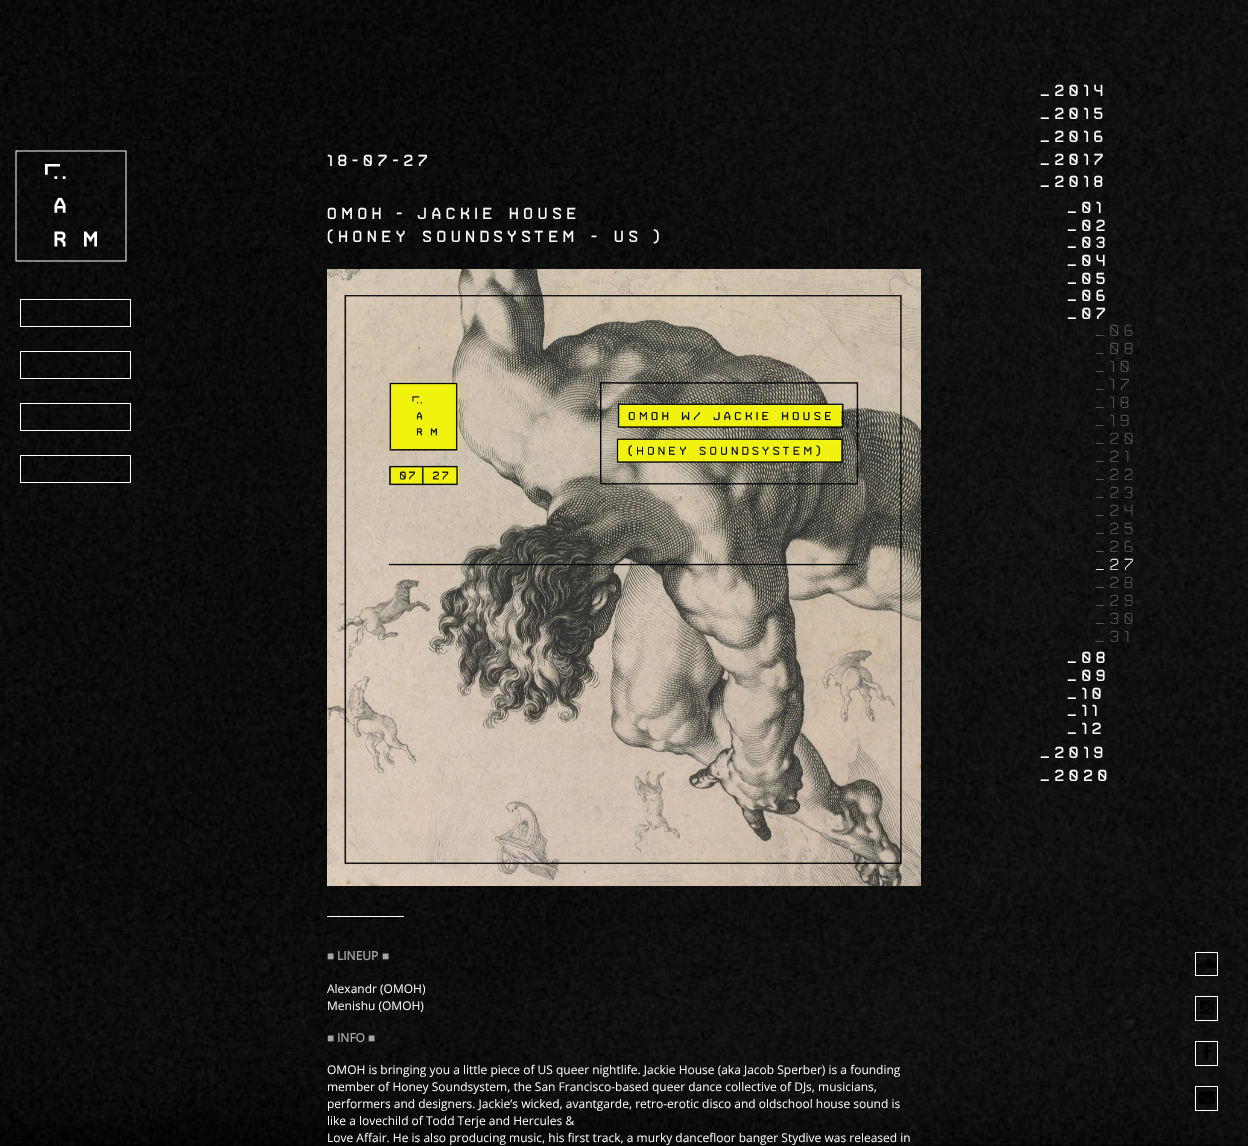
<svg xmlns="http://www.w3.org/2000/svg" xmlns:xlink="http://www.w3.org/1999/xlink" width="1248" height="1146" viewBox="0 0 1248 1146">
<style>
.cls-1{font:16px '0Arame';letter-spacing:4.8px;fill:#ffffff}
.cls-2{font:bold 12px Liberation Sans;fill:#a5a5a5}
.cls-3{font:bold 12px Open Sans;fill:#a5a5a5}
.cls-4{font:12px Open Sans;fill:#ffffff}
.cls-5{font:100 16px '0Arame';letter-spacing:4.8px;fill:#5d5d5d}
.cls-6{font:100 16px '0Arame';letter-spacing:4.8px;fill:#ffffff}
</style>
<rect width="100%" height="100%" fill="#ffffff"/>
<image xlink:href="image0.png" x="0" y="0" width="1248" height="1146"/>
<image xlink:href="image1.png" x="15" y="150" width="112" height="112"/>
<rect fill="none" stroke="#ffffff" x="20.5" y="299.5" width="110" height="27"/>
<rect fill="none" stroke="#ffffff" x="20.5" y="351.5" width="110" height="27"/>
<rect fill="none" stroke="#ffffff" x="20.5" y="403.5" width="110" height="27"/>
<rect fill="none" stroke="#ffffff" x="20.5" y="455.5" width="110" height="27"/>
<image xlink:href="image2.png" x="327" y="269" width="594" height="617"/>
<rect fill="#ffffff" x="327" y="916" width="77" height="1"/>
<rect fill="none" stroke="#ffffff" x="1195.5" y="952.5" width="22" height="23"/>
<image xlink:href="image3.png" x="1196" y="959" width="21" height="9"/>
<rect fill="none" stroke="#ffffff" x="1195.5" y="996.5" width="22" height="24"/>
<image xlink:href="image4.png" x="1200" y="1000" width="14" height="14"/>
<rect fill="none" stroke="#ffffff" x="1195.5" y="1041.5" width="22" height="24"/>
<image xlink:href="image5.png" x="1203" y="1044" width="8" height="15"/>
<rect fill="none" stroke="#ffffff" x="1195.5" y="1086.5" width="22" height="24"/>
<image xlink:href="image6.png" x="1199" y="1091" width="16" height="13"/>
<text class="cls-1" x="327" y="166">18-07-27</text>
<text class="cls-1" x="327" y="219">OMOH</text>
<text class="cls-1" x="396" y="219">-</text>
<text class="cls-1" x="417" y="219">Jackie House</text>
<text class="cls-1" x="327" y="242">(Honey Soundsystem - US</text>
<text class="cls-1" x="653" y="242">)</text>
<text class="cls-2" x="327" y="960">■</text>
<text class="cls-3" x="337" y="960">LINEUP</text>
<text class="cls-2" x="382" y="960">■</text>
<text class="cls-4"><tspan x="327" y="993">Alexandr (OMOH)</tspan><tspan x="327" y="1010">Menishu (OMOH)</tspan></text>
<text class="cls-2" x="327" y="1042">■</text>
<text class="cls-3" x="337" y="1042">INFO</text>
<text class="cls-2" x="368" y="1042">■</text>
<text class="cls-4"><tspan x="327" y="1074">OMOH is bringing you a little piece of US queer nightlife. Jackie House (aka Jacob Sperber) is a founding</tspan><tspan x="327" y="1091">member of Honey Soundsystem, the San Francisco-based queer dance collective of DJs, musicians,</tspan><tspan x="327" y="1108">performers and designers. Jackie’s wicked, avantgarde, retro-erotic disco and oldschool house sound is</tspan><tspan x="327" y="1125">like a lovechild of Todd Terje and Hercules &amp;</tspan><tspan x="327" y="1142">Love Affair. He is also producing music, his first track, a murky dancefloor banger Stydive was released in</tspan></text>
<text class="cls-1"><tspan x="1040" y="96">_2014</tspan><tspan x="1040" y="119">_2015</tspan><tspan x="1040" y="142">_2016</tspan><tspan x="1040" y="165">_2017</tspan><tspan x="1040" y="187">_2018</tspan></text>
<text class="cls-1"><tspan x="1067" y="213">_01</tspan><tspan x="1067" y="231">_02</tspan><tspan x="1067" y="248">_03</tspan><tspan x="1067" y="266">_04</tspan><tspan x="1067" y="284">_05</tspan><tspan x="1067" y="301">_06</tspan><tspan x="1067" y="319">_07</tspan></text>
<text class="cls-5"><tspan x="1095" y="336">_06</tspan><tspan x="1095" y="354">_08</tspan><tspan x="1095" y="372">_10</tspan><tspan x="1095" y="390">_17</tspan><tspan x="1095" y="408">_18</tspan><tspan x="1095" y="426">_19</tspan><tspan x="1095" y="444">_20</tspan><tspan x="1095" y="462">_21</tspan><tspan x="1095" y="480">_22</tspan><tspan x="1095" y="498">_23</tspan><tspan x="1095" y="516">_24</tspan><tspan x="1095" y="534">_25</tspan><tspan x="1095" y="552">_26</tspan></text>
<text class="cls-6" x="1095" y="570">_27</text>
<text class="cls-5"><tspan x="1095" y="588">_28</tspan><tspan x="1095" y="606">_29</tspan><tspan x="1095" y="624">_30</tspan><tspan x="1095" y="642">_31</tspan></text>
<text class="cls-1"><tspan x="1067" y="663">_08</tspan><tspan x="1067" y="681">_09</tspan><tspan x="1067" y="699">_10</tspan><tspan x="1067" y="716">_11</tspan><tspan x="1067" y="734">_12</tspan></text>
<text class="cls-1"><tspan x="1040" y="758">_2019</tspan><tspan x="1040" y="781">_2020</tspan></text>
</svg>
